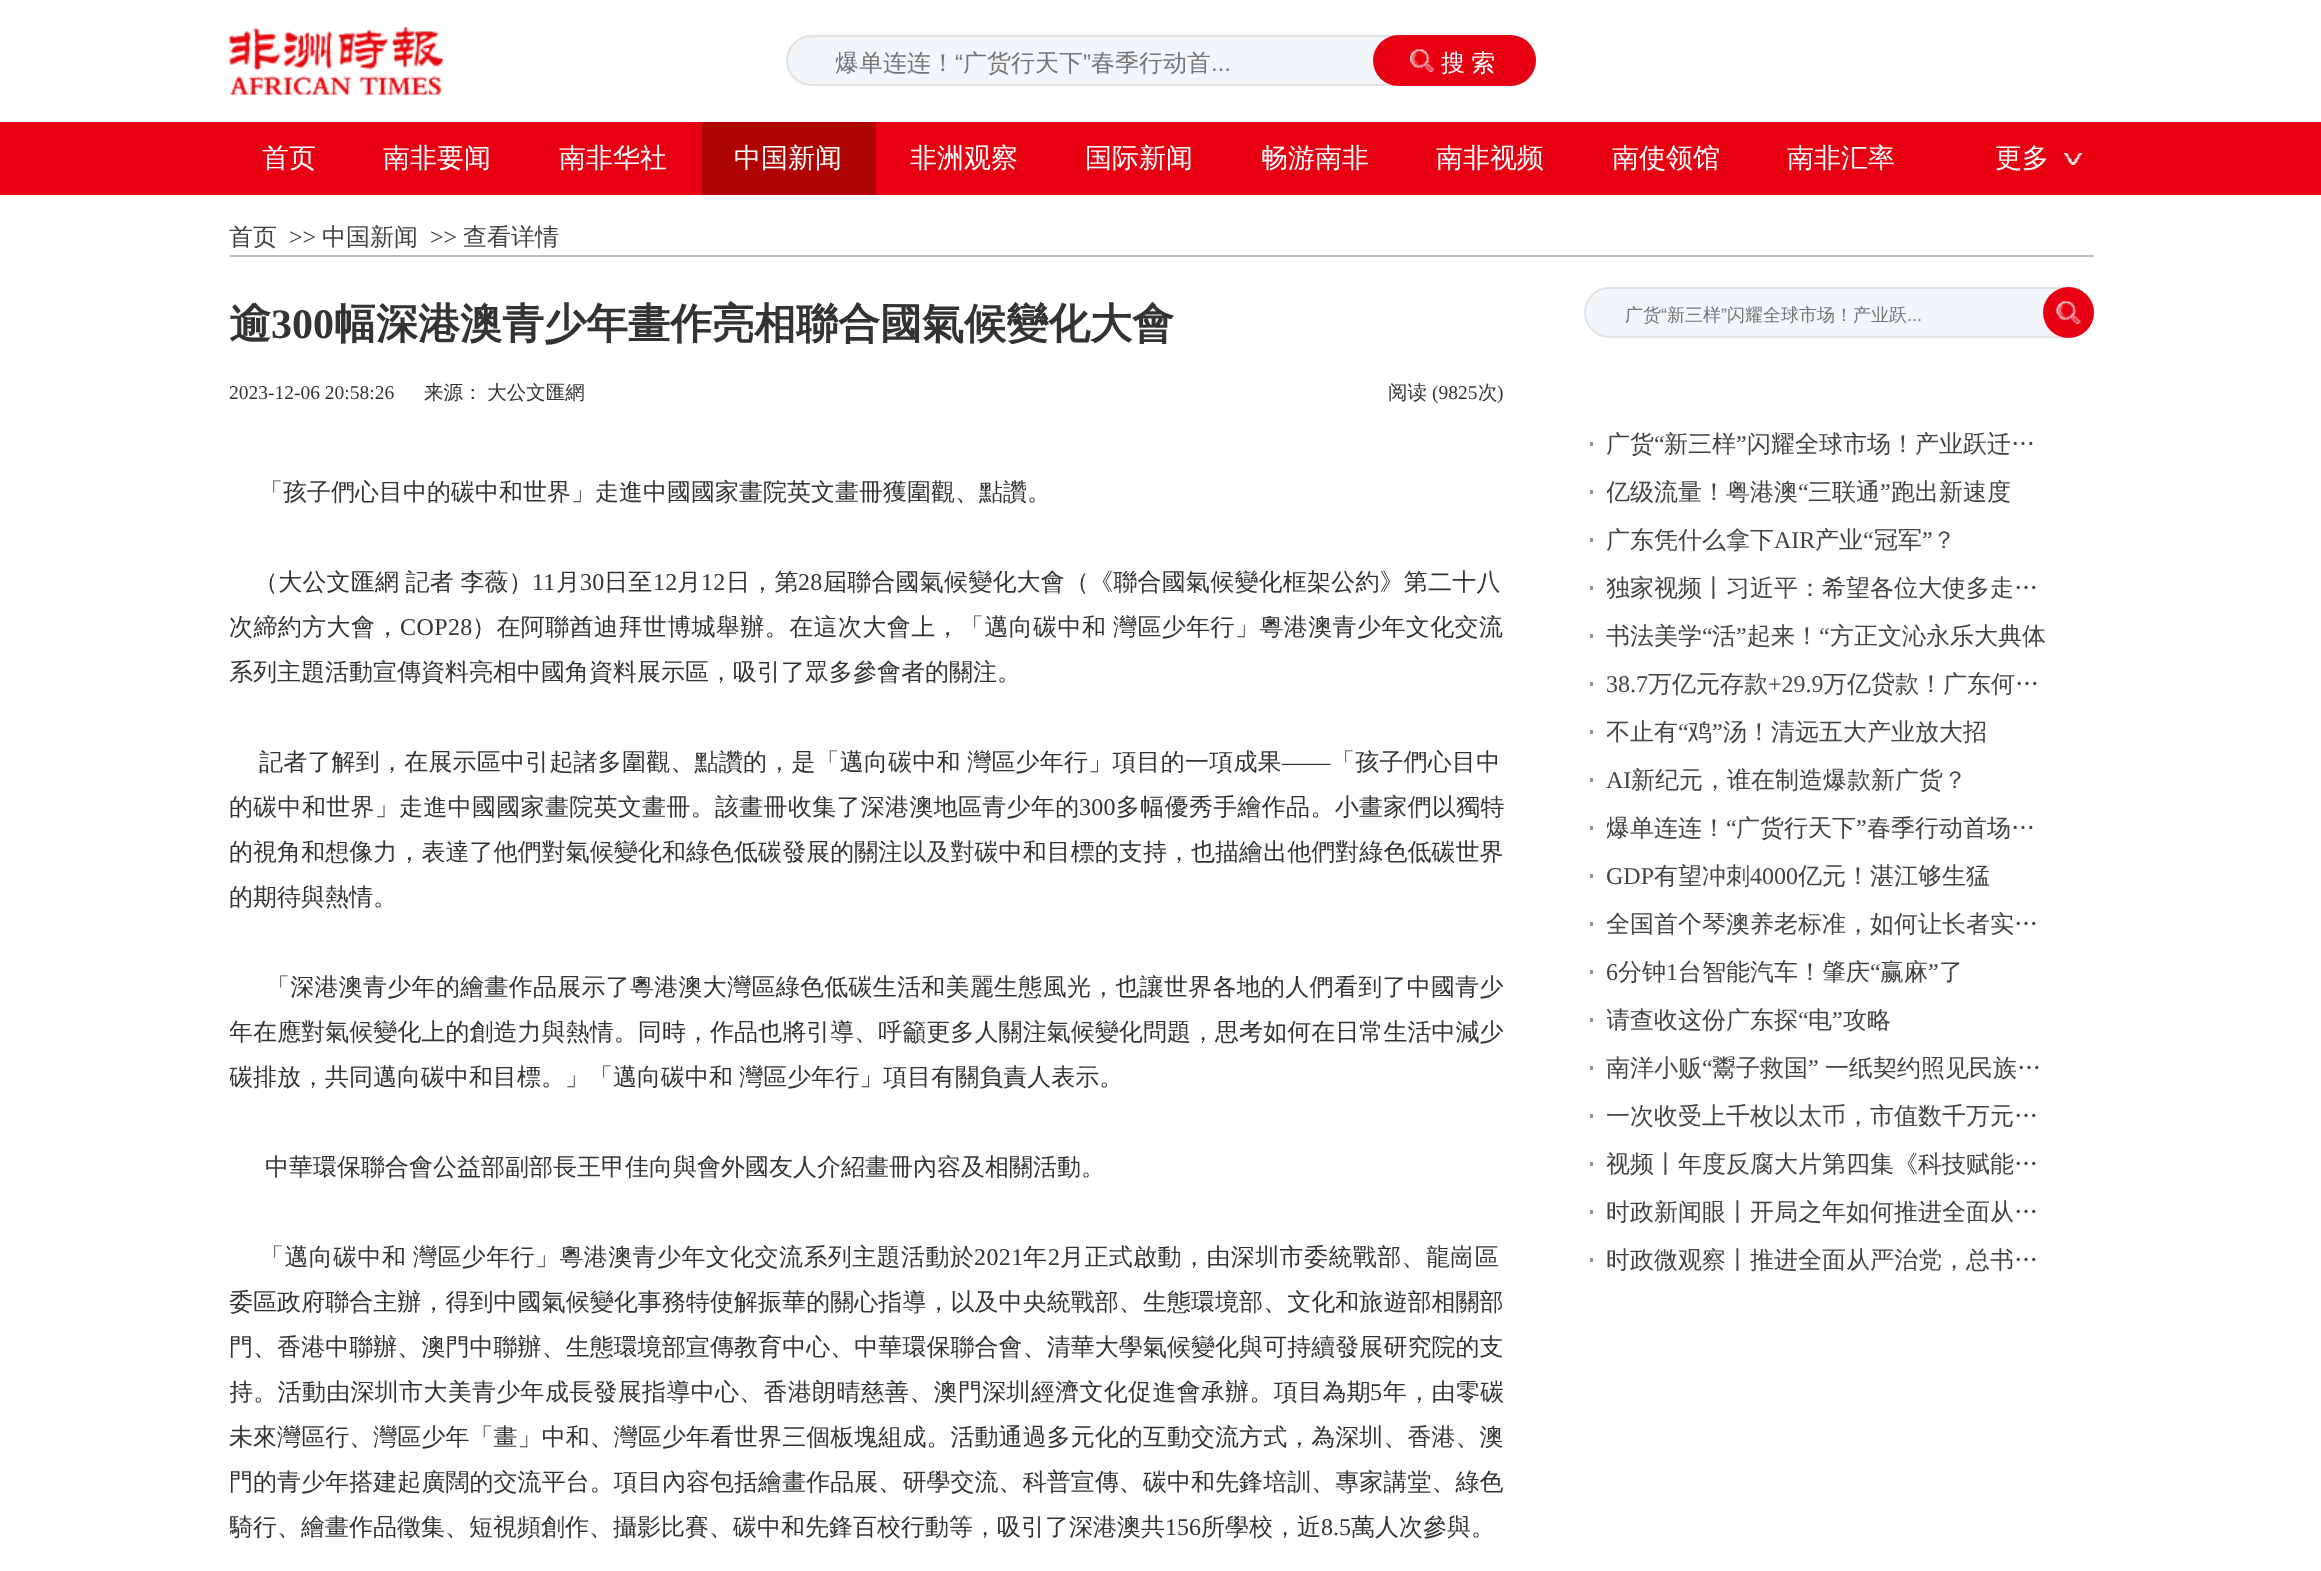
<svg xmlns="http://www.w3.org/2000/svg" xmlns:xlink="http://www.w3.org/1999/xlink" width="2321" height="1571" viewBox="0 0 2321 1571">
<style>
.cls-1{font:500 24px WenQuanYi Zen Hei;fill:#757575}
.cls-2{font:24px Liberation Sans;fill:#757575}
.cls-3{font:500 24px WenQuanYi Zen Hei;fill:#ffffff}
.cls-4{font:500 27px WenQuanYi Zen Hei;fill:#ffffff}
.cls-5{font:500 24px WenQuanYi Zen Hei;fill:#434343}
.cls-6{font:24px Liberation Serif;fill:#333333}
.cls-7{font:bold 42px WenQuanYi Zen Hei;fill:#333333}
.cls-8{font:bold 42px Liberation Serif;fill:#333333}
.cls-9{font:19.5px Liberation Serif;fill:#333333}
.cls-10{font:500 19.5px WenQuanYi Zen Hei;fill:#333333}
.cls-11{font:500 24px WenQuanYi Zen Hei;fill:#333333}
.cls-12{font:500 24px WenQuanYi Zen Hei;letter-spacing:0.2px;fill:#333333}
.cls-13{font:24px Liberation Serif;letter-spacing:0.2px;fill:#333333}
.cls-14{font:500 24px WenQuanYi Zen Hei;letter-spacing:0.4px;fill:#333333}
.cls-15{font:24px Liberation Serif;letter-spacing:0.4px;fill:#333333}
.cls-16{font:500 24px WenQuanYi Zen Hei;letter-spacing:0.3px;fill:#333333}
.cls-17{font:24px Liberation Serif;letter-spacing:0.3px;fill:#333333}
.cls-18{font:500 24px WenQuanYi Zen Hei;letter-spacing:0.05px;fill:#333333}
.cls-19{font:500 24px WenQuanYi Zen Hei;letter-spacing:0.27px;fill:#333333}
.cls-20{font:500 18px WenQuanYi Zen Hei;fill:#757575}
.cls-21{font:18px Liberation Sans;fill:#757575}
.cls-22{font:24px Liberation Serif;fill:#434343}
</style>
<defs>
<clipPath id="clip1"><rect x="836" y="48" width="450" height="32"/></clipPath>
<clipPath id="clip2"><rect x="230" y="425" width="1275" height="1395"/></clipPath>
<clipPath id="clip3"><rect x="1607" y="468" width="450" height="48"/></clipPath>
<clipPath id="clip4"><rect x="1607" y="564" width="450" height="48"/></clipPath>
<clipPath id="clip5"><rect x="1607" y="708" width="450" height="48"/></clipPath>
<clipPath id="clip6"><rect x="1607" y="804" width="450" height="48"/></clipPath>
<clipPath id="clip7"><rect x="1607" y="852" width="450" height="48"/></clipPath>
<clipPath id="clip8"><rect x="1607" y="948" width="450" height="48"/></clipPath>
<clipPath id="clip9"><rect x="1607" y="996" width="450" height="48"/></clipPath>
</defs>
<rect width="100%" height="100%" fill="#ffffff"/>
<image xlink:href="image0.png" x="229" y="27" width="214" height="68"/>
<rect fill="#f3f6f8" stroke="#e2e2e2" stroke-width="2" x="787" y="36" width="748" height="49" rx="24.5"/>
<rect fill="#e60012" x="1373" y="35" width="163" height="51" rx="25.5"/>
<image xlink:href="image1.png" x="1410" y="49" width="24" height="23"/>
<rect fill="#e60012" x="0" y="122" width="2321" height="73"/>
<rect fill="#ae0404" x="702" y="122" width="174" height="73"/>
<image xlink:href="image2.png" x="2064" y="153" width="18" height="12"/>
<rect fill="#bababa" x="230" y="255" width="1864" height="2"/>
<rect fill="#f3f6f8" stroke="#e2e2e2" stroke-width="2" x="1585" y="288" width="508" height="49" rx="24.5"/>
<circle fill="#e60012" cx="2068.5" cy="312.5" r="25.5"/>
<image xlink:href="image3.png" x="2056" y="301" width="25" height="23"/>
<rect fill="#949393" x="1590" y="442" width="3" height="4"/>
<rect fill="#949393" x="1590" y="490" width="3" height="4"/>
<rect fill="#949393" x="1590" y="538" width="3" height="4"/>
<rect fill="#949393" x="1590" y="586" width="3" height="4"/>
<rect fill="#949393" x="1590" y="634" width="3" height="4"/>
<rect fill="#949393" x="1590" y="682" width="3" height="4"/>
<rect fill="#949393" x="1590" y="730" width="3" height="4"/>
<rect fill="#949393" x="1590" y="778" width="3" height="4"/>
<rect fill="#949393" x="1590" y="826" width="3" height="4"/>
<rect fill="#949393" x="1590" y="874" width="3" height="4"/>
<rect fill="#949393" x="1590" y="922" width="3" height="4"/>
<rect fill="#949393" x="1590" y="970" width="3" height="4"/>
<rect fill="#949393" x="1590" y="1018" width="3" height="4"/>
<rect fill="#949393" x="1590" y="1066" width="3" height="4"/>
<rect fill="#949393" x="1590" y="1114" width="3" height="4"/>
<rect fill="#949393" x="1590" y="1162" width="3" height="4"/>
<rect fill="#949393" x="1590" y="1210" width="3" height="4"/>
<rect fill="#949393" x="1590" y="1258" width="3" height="4"/>
<g clip-path="url(#clip1)">
<text class="cls-1" x="835" y="71">爆单连连！</text>
</g>
<text class="cls-2" x="955" y="71">“</text>
<text class="cls-1" x="963" y="71">广货行天下</text>
<text class="cls-2" x="1083" y="71">”</text>
<text class="cls-1" x="1091" y="71">春季行动首</text>
<text class="cls-2" x="1211" y="71">...</text>
<text class="cls-3" x="1441" y="71" word-spacing="-1">搜 索</text>
<text class="cls-4" x="262" y="167">首页</text>
<text class="cls-4" x="383" y="167">南非要闻</text>
<text class="cls-4" x="559" y="167">南非华社</text>
<text class="cls-4" x="734" y="167">中国新闻</text>
<text class="cls-4" x="910" y="167">非洲观察</text>
<text class="cls-4" x="1085" y="167">国际新闻</text>
<text class="cls-4" x="1261" y="167">畅游南非</text>
<text class="cls-4" x="1436" y="167">南非视频</text>
<text class="cls-4" x="1612" y="167">南使领馆</text>
<text class="cls-4" x="1787" y="167">南非汇率</text>
<text class="cls-4" x="1995" y="167">更多</text>
<text class="cls-5" x="229" y="245">首页</text>
<text class="cls-6" x="289" y="245">&gt;&gt;</text>
<text class="cls-5" x="322" y="245">中国新闻</text>
<text class="cls-6" x="430" y="245">&gt;&gt;</text>
<text class="cls-5" x="463" y="245">查看详情</text>
<text class="cls-7" x="229" y="338">逾</text>
<text class="cls-8" x="271" y="338">300</text>
<text class="cls-7" x="334" y="338">幅深港澳青少年畫作亮相聯合國氣候變化大會</text>
<text class="cls-9" x="229" y="399">2023-12-06 20:58:26</text>
<text class="cls-10" x="424" y="399" word-spacing="-1">来源： 大公文匯網</text>
<text class="cls-10" x="1388" y="399">阅读</text>
<text class="cls-9" x="1432" y="399">(9825</text>
<text class="cls-10" x="1478" y="399">次</text>
<text class="cls-9" x="1497" y="399">)</text>
<text class="cls-11" x="259" y="500">「孩子們心目中的碳中和世界」走進中國國家畫院英文畫冊獲圍觀、點讚。</text>
<text class="cls-12" x="254" y="590" word-spacing="-1">（大公文匯網 記者 李薇）</text>
<text class="cls-13" x="532" y="590">11</text>
<text class="cls-12" x="556" y="590">月</text>
<text class="cls-13" x="580" y="590">30</text>
<text class="cls-12" x="604" y="590">日至</text>
<text class="cls-13" x="653" y="590">12</text>
<text class="cls-12" x="677" y="590">月</text>
<text class="cls-13" x="701" y="590">12</text>
<text class="cls-12" x="726" y="590">日，第</text>
<text class="cls-13" x="798" y="590">28</text>
<text class="cls-12" x="823" y="590">屆聯合國氣候變化大會（《聯合國氣候變化框架公約》第二十八</text>
<text class="cls-14" x="229" y="635">次締約方大會，</text>
<text class="cls-15" x="400" y="635">COP28</text>
<text class="cls-14" x="472" y="635" word-spacing="-1">）在阿聯酋迪拜世博城舉辦。在這次大會上，「邁向碳中和 灣區少年行」粵港澳青少年文化交流</text>
<text class="cls-11" x="229" y="680">系列主題活動宣傳資料亮相中國角資料展示區，吸引了眾多參會者的關注。</text>
<text class="cls-12" x="259" y="770" word-spacing="-1">記者了解到，在展示區中引起諸多圍觀、點讚的，是「邁向碳中和 灣區少年行」項目的一項成果</text>
<text class="cls-13" x="1282" y="770">——</text>
<text class="cls-12" x="1331" y="770">「孩子們心目中</text>
<text class="cls-16" x="229" y="815">的碳中和世界」走進中國國家畫院英文畫冊。該畫冊收集了深港澳地區青少年的</text>
<text class="cls-17" x="1079" y="815">300</text>
<text class="cls-16" x="1116" y="815">多幅優秀手繪作品。小畫家們以獨特</text>
<text class="cls-18" x="229" y="860">的視角和想像力，表達了他們對氣候變化和綠色低碳發展的關注以及對碳中和目標的支持，也描繪出他們對綠色低碳世界</text>
<text class="cls-11" x="229" y="905">的期待與熱情。</text>
<text class="cls-19" x="266" y="995">「深港澳青少年的繪畫作品展示了粵港澳大灣區綠色低碳生活和美麗生態風光，也讓世界各地的人們看到了中國青少</text>
<g clip-path="url(#clip2)">
<text class="cls-18" x="229" y="1040">年在應對氣候變化上的創造力與熱情。同時，作品也將引導、呼籲更多人關注氣候變化問題，思考如何在日常生活中減少</text>
<text class="cls-11" x="229" y="1085" word-spacing="-1">碳排放，共同邁向碳中和目標。」「邁向碳中和 灣區少年行」項目有關負責人表示。</text>
</g>
<text class="cls-11" x="265" y="1175">中華環保聯合會公益部副部長王甲佳向與會外國友人介紹畫冊內容及相關活動。</text>
<text class="cls-14" x="260" y="1265" word-spacing="-1">「邁向碳中和 灣區少年行」粵港澳青少年文化交流系列主題活動於</text>
<text class="cls-15" x="974" y="1265">2021</text>
<text class="cls-14" x="1023" y="1265">年</text>
<text class="cls-15" x="1048" y="1265">2</text>
<text class="cls-14" x="1060" y="1265">月正式啟動，由深圳市委統戰部、龍崗區</text>
<g clip-path="url(#clip2)">
<text class="cls-18" x="229" y="1310">委區政府聯合主辦，得到中國氣候變化事務特使解振華的關心指導，以及中央統戰部、生態環境部、文化和旅遊部相關部</text>
</g>
<text class="cls-18" x="229" y="1355">門、香港中聯辦、澳門中聯辦、生態環境部宣傳教育中心、中華環保聯合會、清華大學氣候變化與可持續發展研究院的支</text>
<g clip-path="url(#clip2)">
<text class="cls-16" x="229" y="1400">持。活動由深圳市大美青少年成長發展指導中心、香港朗晴慈善、澳門深圳經濟文化促進會承辦。項目為期</text>
</g>
<text class="cls-17" x="1370" y="1400">5</text>
<text class="cls-16" x="1383" y="1400">年，由零碳</text>
<text class="cls-18"><tspan x="229" y="1445">未來灣區行、灣區少年「畫」中和、灣區少年看世界三個板塊組成。活動通過多元化的互動交流方式，為深圳、香港、澳</tspan><tspan x="229" y="1490">門的青少年搭建起廣闊的交流平台。項目內容包括繪畫作品展、研學交流、科普宣傳、碳中和先鋒培訓、專家講堂、綠色</tspan></text>
<g clip-path="url(#clip2)">
<text class="cls-11" x="229" y="1535">騎行、繪畫作品徵集、短視頻創作、攝影比賽、碳中和先鋒百校行動等，吸引了深港澳共</text>
</g>
<text class="cls-6" x="1165" y="1535">156</text>
<text class="cls-11" x="1201" y="1535">所學校，近</text>
<text class="cls-6" x="1321" y="1535">8.5</text>
<text class="cls-11" x="1351" y="1535">萬人次參與。</text>
<text class="cls-20" x="1625" y="321">广货</text>
<text class="cls-21" x="1661" y="321">“</text>
<text class="cls-20" x="1667" y="321">新三样</text>
<text class="cls-21" x="1721" y="321">”</text>
<text class="cls-20" x="1727" y="321">闪耀全球市场！产业跃</text>
<text class="cls-21" x="1907" y="321">...</text>
<text class="cls-5" x="1606" y="452">广货</text>
<text class="cls-22" x="1654" y="452">“</text>
<text class="cls-5" x="1664" y="452">新三样</text>
<text class="cls-22" x="1736" y="452">”</text>
<text class="cls-5" x="1747" y="452">闪耀全球市场！产业跃迁…</text>
<g clip-path="url(#clip3)">
<text class="cls-5" x="1606" y="500">亿级流量！粤港澳</text>
</g>
<text class="cls-22" x="1798" y="500">“</text>
<text class="cls-5" x="1808" y="500">三联通</text>
<text class="cls-22" x="1880" y="500">”</text>
<text class="cls-5" x="1891" y="500">跑出新速度</text>
<text class="cls-5" x="1606" y="548">广东凭什么拿下</text>
<text class="cls-22" x="1774" y="548">AIR</text>
<text class="cls-5" x="1815" y="548">产业</text>
<text class="cls-22" x="1863" y="548">“</text>
<text class="cls-5" x="1874" y="548">冠军</text>
<text class="cls-22" x="1922" y="548">”</text>
<text class="cls-5" x="1932" y="548">？</text>
<g clip-path="url(#clip4)">
<text class="cls-5" x="1606" y="596" word-spacing="-1">独家视频丨习近平：希望各位大使多走…</text>
</g>
<text class="cls-5" x="1606" y="644">书法美学</text>
<text class="cls-22" x="1702" y="644">“</text>
<text class="cls-5" x="1712" y="644">活</text>
<text class="cls-22" x="1736" y="644">”</text>
<text class="cls-5" x="1747" y="644">起来！</text>
<text class="cls-22" x="1819" y="644">“</text>
<text class="cls-5" x="1830" y="644">方正文沁永乐大典体</text>
<text class="cls-22" x="1606" y="692">38.7</text>
<text class="cls-5" x="1648" y="692">万亿元存款</text>
<text class="cls-22" x="1768" y="692">+29.9</text>
<text class="cls-5" x="1823" y="692">万亿贷款！广东何…</text>
<g clip-path="url(#clip5)">
<text class="cls-5" x="1606" y="740">不止有</text>
</g>
<text class="cls-22" x="1678" y="740">“</text>
<text class="cls-5" x="1688" y="740">鸡</text>
<text class="cls-22" x="1712" y="740">”</text>
<text class="cls-5" x="1723" y="740">汤！清远五大产业放大招</text>
<text class="cls-22" x="1606" y="788">AI</text>
<text class="cls-5" x="1631" y="788">新纪元，谁在制造爆款新广货？</text>
<g clip-path="url(#clip6)">
<text class="cls-5" x="1606" y="836">爆单连连！</text>
</g>
<text class="cls-22" x="1726" y="836">“</text>
<text class="cls-5" x="1736" y="836">广货行天下</text>
<text class="cls-22" x="1856" y="836">”</text>
<text class="cls-5" x="1867" y="836">春季行动首场…</text>
<g clip-path="url(#clip7)">
<text class="cls-22" x="1606" y="884">GDP</text>
</g>
<text class="cls-5" x="1654" y="884">有望冲刺</text>
<text class="cls-22" x="1750" y="884">4000</text>
<text class="cls-5" x="1798" y="884">亿元！湛江够生猛</text>
<text class="cls-5" x="1606" y="932">全国首个琴澳养老标准，如何让长者实…</text>
<g clip-path="url(#clip8)">
<text class="cls-22" x="1606" y="980">6</text>
</g>
<text class="cls-5" x="1618" y="980">分钟</text>
<text class="cls-22" x="1666" y="980">1</text>
<text class="cls-5" x="1678" y="980">台智能汽车！肇庆</text>
<text class="cls-22" x="1870" y="980">“</text>
<text class="cls-5" x="1880" y="980">赢麻</text>
<text class="cls-22" x="1928" y="980">”</text>
<text class="cls-5" x="1939" y="980">了</text>
<g clip-path="url(#clip9)">
<text class="cls-5" x="1606" y="1028">请查收这份广东探</text>
</g>
<text class="cls-22" x="1798" y="1028">“</text>
<text class="cls-5" x="1808" y="1028">电</text>
<text class="cls-22" x="1832" y="1028">”</text>
<text class="cls-5" x="1843" y="1028">攻略</text>
<text class="cls-5" x="1606" y="1076">南洋小贩</text>
<text class="cls-22" x="1702" y="1076">“</text>
<text class="cls-5" x="1712" y="1076">鬻子救国</text>
<text class="cls-22" x="1808" y="1076">”</text>
<text class="cls-5" x="1825" y="1076">一纸契约照见民族…</text>
<text class="cls-5" x="1606" y="1124">一次收受上千枚以太币，市值数千万元…</text>
<text class="cls-5" x="1606" y="1172">视频丨年度反腐大片第四集《科技赋能…</text>
<text class="cls-5" x="1606" y="1220">时政新闻眼丨开局之年如何推进全面从…</text>
<text class="cls-5" x="1606" y="1268">时政微观察丨推进全面从严治党，总书…</text>
</svg>
